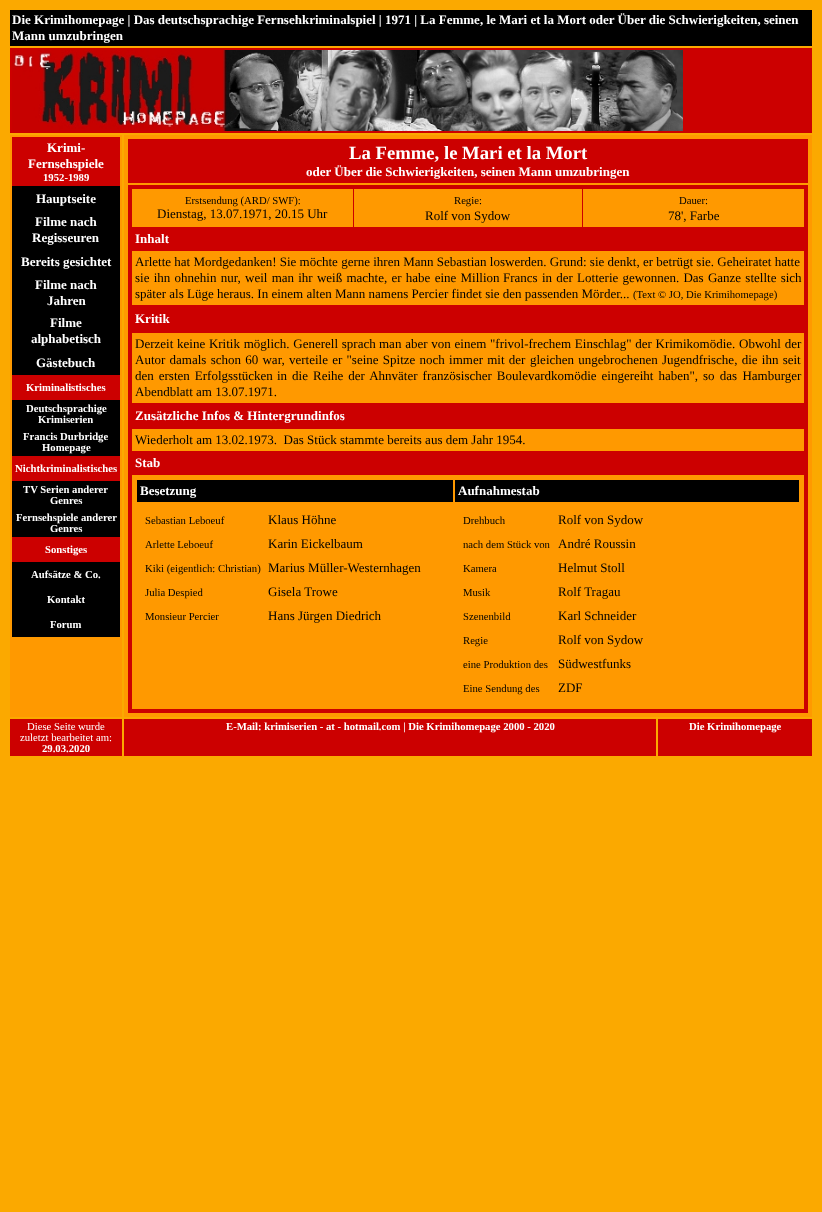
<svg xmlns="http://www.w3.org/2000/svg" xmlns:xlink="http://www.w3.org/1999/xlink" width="822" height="1212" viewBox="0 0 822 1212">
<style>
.cls-1{font:bold 13px Liberation Serif;fill:#ffffff}
.cls-2{font:bold 10.7px Liberation Serif;fill:#ffffff}
.cls-3{font:bold 18.7px Liberation Serif;fill:#ffffff}
.cls-4{font:10.7px Liberation Serif;fill:#000000}
.cls-5{font:13px Liberation Serif;fill:#000000}
.cls-6{font:10.7px Liberation Serif;fill:#ffffff}
</style>
<rect width="100%" height="100%" fill="#fba900"/>
<rect fill="#000000" x="10" y="10" width="802" height="36"/>
<rect fill="#cc0000" x="10" y="48" width="802" height="85"/>
<image xlink:href="image0.png" x="12" y="50" width="671" height="81"/>
<rect fill="#ff9900" x="10" y="135" width="112" height="582"/>
<rect fill="#cc0000" x="12" y="137" width="108" height="49"/>
<rect fill="#000000" x="12" y="186" width="108" height="189"/>
<rect fill="#cc0000" x="12" y="375" width="108" height="25"/>
<rect fill="#000000" x="12" y="400" width="108" height="56"/>
<rect fill="#cc0000" x="12" y="456" width="108" height="25"/>
<rect fill="#000000" x="12" y="481" width="108" height="56"/>
<rect fill="#cc0000" x="12" y="537" width="108" height="25"/>
<rect fill="#000000" x="12" y="562" width="108" height="75"/>
<rect fill="#ff9900" x="124" y="135" width="688" height="582"/>
<rect fill="#cc0000" x="128" y="139" width="680" height="44"/>
<rect fill="#cc0000" x="128" y="185" width="680" height="528"/>
<rect fill="#ff9900" x="132" y="189" width="221" height="38"/>
<rect fill="#ff9900" x="354" y="189" width="228" height="38"/>
<rect fill="#ff9900" x="583" y="189" width="221" height="38"/>
<rect fill="#ff9900" x="132" y="251" width="672" height="54"/>
<rect fill="#ff9900" x="132" y="333" width="672" height="70"/>
<rect fill="#ff9900" x="132" y="429" width="672" height="22"/>
<rect fill="#ff9900" x="132" y="475" width="672" height="234"/>
<rect fill="#000000" x="137" y="480" width="316" height="22"/>
<rect fill="#000000" x="455" y="480" width="344" height="22"/>
<rect fill="#cc0000" x="10" y="719" width="112" height="37"/>
<rect fill="#cc0000" x="124" y="719" width="532" height="37"/>
<rect fill="#cc0000" x="658" y="719" width="154" height="37"/>
<text class="cls-1"><tspan x="12" y="24">Die Krimihomepage | Das deutschsprachige Fernsehkriminalspiel | 1971 | La Femme, le Mari et la Mort oder Über die Schwierigkeiten, seinen</tspan><tspan x="12" y="40">Mann umzubringen</tspan></text>
<text class="cls-1" x="47" y="152">Krimi-</text>
<text class="cls-1" x="28" y="168">Fernsehspiele</text>
<text class="cls-2" x="43" y="181">1952-1989</text>
<text class="cls-1" x="36" y="203">Hauptseite</text>
<text class="cls-1" x="35" y="226">Filme nach</text>
<text class="cls-1" x="32" y="242">Regisseuren</text>
<text class="cls-1" x="21" y="266">Bereits gesichtet</text>
<text class="cls-1" x="35" y="289">Filme nach</text>
<text class="cls-1" x="47" y="305">Jahren</text>
<text class="cls-1" x="50" y="327">Filme</text>
<text class="cls-1" x="31" y="343">alphabetisch</text>
<text class="cls-1" x="36" y="367">Gästebuch</text>
<text class="cls-2"><tspan x="26" y="391">Kriminalistisches</tspan><tspan x="26" y="412">Deutschsprachige</tspan></text>
<text class="cls-2" x="38" y="423">Krimiserien</text>
<text class="cls-2" x="23" y="440">Francis Durbridge</text>
<text class="cls-2" x="42" y="451">Homepage</text>
<text class="cls-2" x="15" y="472">Nichtkriminalistisches</text>
<text class="cls-2" x="23" y="493">TV Serien anderer</text>
<text class="cls-2" x="50" y="504">Genres</text>
<text class="cls-2" x="16" y="521">Fernsehspiele anderer</text>
<text class="cls-2" x="50" y="532">Genres</text>
<text class="cls-2" x="45" y="553">Sonstiges</text>
<text class="cls-2" x="31" y="578">Aufsätze &amp; Co.</text>
<text class="cls-2" x="47" y="603">Kontakt</text>
<text class="cls-2" x="50" y="628">Forum</text>
<text class="cls-3" x="349" y="159">La Femme, le Mari et la Mort</text>
<text class="cls-1" x="306" y="176">oder Über die Schwierigkeiten, seinen Mann umzubringen</text>
<text class="cls-4" x="185" y="204">Erstsendung (ARD/ SWF):</text>
<text class="cls-5" x="157" y="218">Dienstag, 13.07.1971, 20.15 Uhr</text>
<text class="cls-4" x="454" y="204">Regie:</text>
<text class="cls-5" x="425" y="220">Rolf von Sydow</text>
<text class="cls-4" x="679" y="204">Dauer:</text>
<text class="cls-5" x="668" y="220">78', Farbe</text>
<text class="cls-1" x="135" y="243">Inhalt</text>
<text class="cls-5"><tspan x="135" y="266">Arlette hat Mordgedanken! Sie möchte gerne ihren Mann Sebastian loswerden. Grund: sie denkt, er betrügt sie. Geheiratet hatte</tspan><tspan x="135" y="282" word-spacing="1">sie ihn ohnehin nur, weil man ihr weiß machte, er habe eine Million</tspan></text>
<text class="cls-5" x="503" y="282" word-spacing="1">Francs in der Lotterie gewonnen. Das Ganze stellte sich</text>
<text class="cls-5" x="135" y="298">später als Lüge heraus. In einem alten Mann namens Percier findet sie den passenden Mörder...</text>
<text class="cls-4" x="633" y="298">(Text © JO, Die Krimihomepage)</text>
<text class="cls-1" x="135" y="323">Kritik</text>
<text class="cls-5" x="135" y="348" word-spacing="0.5">Derzeit keine Kritik möglich. Generell sprach</text>
<text class="cls-5" x="379" y="348" word-spacing="0.5">man aber von einem "frivol-frechem Einschlag" der Krimikomödie. Obwohl der</text>
<text class="cls-5" x="135" y="364" word-spacing="1">Autor damals schon 60 war, verteile er "seine Spitze noch immer mit der</text>
<text class="cls-5" x="530" y="364" word-spacing="1">gleichen ungebrochenen Jugendfrische, die ihn seit</text>
<text class="cls-5" x="135" y="380" word-spacing="1.75">den ersten Erfolgsstücken</text>
<text class="cls-5" x="277" y="380" word-spacing="1.75">in die Reihe der Ahnväter französischer Boulevardkomödie eingereiht haben",</text>
<text class="cls-5" x="703" y="380" word-spacing="2">so das Hamburger</text>
<text class="cls-5" x="135" y="396">Abendblatt am 13.07.1971.</text>
<text class="cls-1" x="135" y="420">Zusätzliche Infos &amp; Hintergrundinfos</text>
<text class="cls-5" xml:space="preserve" x="135" y="444">Wiederholt am 13.02.1973.  Das Stück stammte bereits aus dem Jahr 1954.</text>
<text class="cls-1" x="135" y="467">Stab</text>
<text class="cls-1" x="140" y="495">Besetzung</text>
<text class="cls-1" x="458" y="495">Aufnahmestab</text>
<text class="cls-4" x="145" y="524">Sebastian Leboeuf</text>
<text class="cls-5" x="268" y="524">Klaus Höhne</text>
<text class="cls-4" x="145" y="548">Arlette Leboeuf</text>
<text class="cls-5" x="268" y="548">Karin Eickelbaum</text>
<text class="cls-4" x="145" y="572">Kiki (eigentlich: Christian)</text>
<text class="cls-5" x="268" y="572">Marius Müller-Westernhagen</text>
<text class="cls-4" x="145" y="596">Julia Despied</text>
<text class="cls-5" x="268" y="596">Gisela Trowe</text>
<text class="cls-4" x="145" y="620">Monsieur Percier</text>
<text class="cls-5" x="268" y="620">Hans Jürgen Diedrich</text>
<text class="cls-4" x="463" y="524">Drehbuch</text>
<text class="cls-5" x="558" y="524">Rolf von Sydow</text>
<text class="cls-4" x="463" y="548">nach dem Stück von</text>
<text class="cls-5" x="558" y="548">André Roussin</text>
<text class="cls-4" x="463" y="572">Kamera</text>
<text class="cls-5" x="558" y="572">Helmut Stoll</text>
<text class="cls-4" x="463" y="596">Musik</text>
<text class="cls-5" x="558" y="596">Rolf Tragau</text>
<text class="cls-4" x="463" y="620">Szenenbild</text>
<text class="cls-5" x="558" y="620">Karl Schneider</text>
<text class="cls-4" x="463" y="644">Regie</text>
<text class="cls-5" x="558" y="644">Rolf von Sydow</text>
<text class="cls-4" x="463" y="668">eine Produktion des</text>
<text class="cls-5" x="558" y="668">Südwestfunks</text>
<text class="cls-4" x="463" y="692">Eine Sendung des</text>
<text class="cls-5" x="558" y="692">ZDF</text>
<text class="cls-6" x="27" y="730">Diese Seite wurde</text>
<text class="cls-6" x="20" y="741">zuletzt bearbeitet am:</text>
<text class="cls-2" x="42" y="752">29.03.2020</text>
<text class="cls-2" x="226" y="730">E-Mail: krimiserien - at - hotmail.com | Die Krimihomepage 2000 - 2020</text>
<text class="cls-2" x="689" y="730">Die Krimihomepage</text>
</svg>
